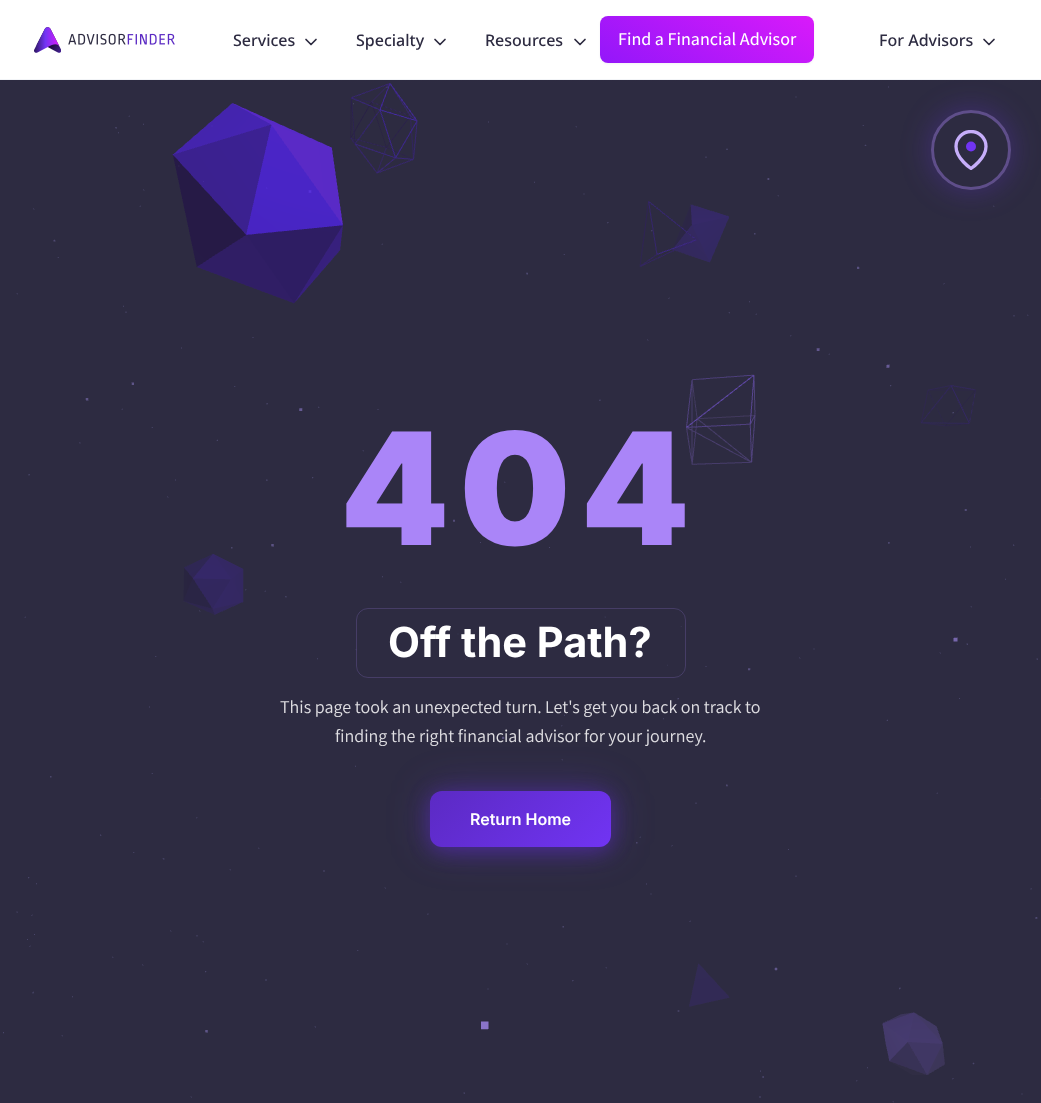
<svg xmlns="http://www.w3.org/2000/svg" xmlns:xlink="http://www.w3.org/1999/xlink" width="1041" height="1103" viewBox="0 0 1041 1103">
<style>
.cls-1{font:500 16px Noto Sans;fill:#2d2b41}
.cls-2{font:500 18px Assistant;fill:#ffffff}
.cls-3{font:900 156px Inter;letter-spacing:10px;fill:#aa85f8}
.cls-4{font:bold 41.5px Inter;fill:#ffffff}
.cls-5{font:18px Assistant;fill:#e0dfe3}
.cls-6{font:600 16px Inter;fill:#ffffff}
</style>
<defs>
<linearGradient id="g1" gradientUnits="userSpaceOnUse" x1="520" y1="80" x2="521" y2="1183"><stop offset="0" stop-color="#2d2b41"/><stop offset="0.5" stop-color="#441f92"/><stop offset="1" stop-color="#2d2b41"/></linearGradient>
<clipPath id="clip1"><path d="M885 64H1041V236H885ZM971 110C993 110 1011 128 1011 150C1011 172 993 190 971 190C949 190 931 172 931 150C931 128 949 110 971 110Z" clip-rule="evenodd"/></clipPath>
<linearGradient id="g2" gradientUnits="userSpaceOnUse" x1="570" y1="126" x2="683" y2="-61"><stop offset="0" stop-color="#7315f9"/><stop offset="1" stop-color="#d81afa"/></linearGradient>
<clipPath id="clip2"><rect x="951" y="130" width="40" height="40"/></clipPath>
<linearGradient id="g3" gradientUnits="userSpaceOnUse" x1="461" y1="759" x2="580" y2="878"><stop offset="0" stop-color="#5b2ac3"/><stop offset="1" stop-color="#7134f3"/></linearGradient>
</defs>
<rect width="100%" height="100%" fill="#ffffff"/>
<rect fill="url(#g1)" x="0" y="80" width="1041" height="3"/>
<image xlink:href="image1.png" x="0" y="83" width="1041" height="1020"/>
<g clip-path="url(#clip1)">
<rect fill="#7134f3" fill-opacity="0.3" filter="blur(15px)" x="931" y="110" width="80" height="80" rx="40"/>
</g>
<rect fill="#f2f4f7" x="0" y="79" width="1041" height="1"/>
<image xlink:href="image0.png" x="34" y="27" width="141" height="26"/>
<path fill="none" stroke="#2d2b41" stroke-width="1.7" stroke-linecap="round" stroke-linejoin="round" d="M306 39.5L311 44.5L316 39.5"/>
<path fill="none" stroke="#2d2b41" stroke-width="1.7" stroke-linecap="round" stroke-linejoin="round" d="M435 39.5L440 44.5L445 39.5"/>
<path fill="none" stroke="#2d2b41" stroke-width="1.7" stroke-linecap="round" stroke-linejoin="round" d="M575 39.5L580 44.5L585 39.5"/>
<rect fill="#101828" fill-opacity="0.05" filter="blur(1px)" x="600" y="17" width="214" height="47" rx="8"/>
<rect fill="url(#g2)" x="600" y="16" width="214" height="47" rx="8"/>
<path fill="none" stroke="#2d2b41" stroke-width="1.7" stroke-linecap="round" stroke-linejoin="round" d="M984 39.5L989 44.5L994 39.5"/>
<circle fill="#2d2b41" fill-opacity="0.6" cx="971" cy="150" r="40"/>
<circle fill="none" stroke="#aa85f8" stroke-opacity="0.4" stroke-width="3" cx="971" cy="150" r="38.5"/>
<g clip-path="url(#clip2)">
<path fill="none" stroke="#c6aefa" stroke-width="3.3" stroke-linecap="round" stroke-linejoin="round" d="M986 146.5C986 158.5 971 168.5 971 168.5C971 168.5 956 158.5 956 146.5C956 138.5 962.5 131.5 971 131.5C979.5 131.5 986 138.5 986 146.5Z"/>
</g>
<circle fill="#7134f3" cx="971" cy="146.5" r="5"/>
<rect fill="#2d2b41" fill-opacity="0.6" x="356" y="608" width="330" height="70" rx="12"/>
<rect fill="none" stroke="#aa85f8" stroke-opacity="0.2" x="356.5" y="608.5" width="329" height="69" rx="11.5"/>
<rect fill="#7134f3" fill-opacity="0.3" filter="blur(20px)" x="430" y="791" width="181" height="56" rx="12"/>
<rect fill="#5b2ac3" fill-opacity="0.5" filter="blur(10px)" x="430" y="795" width="181" height="56" rx="12"/>
<rect fill="url(#g3)" x="430" y="791" width="181" height="56" rx="12"/>
<text class="cls-1" x="233" y="46">Services</text>
<text class="cls-1" x="356" y="46">Specialty</text>
<text class="cls-1" x="485" y="46">Resources</text>
<text class="cls-2" x="618" y="45">Find a Financial Advisor</text>
<text class="cls-1" x="879" y="46">For Advisors</text>
<text class="cls-3" x="340" y="545">404</text>
<text class="cls-4" x="388" y="657">Off the Path?</text>
<text class="cls-5" x="280" y="713">This page took an unexpected turn. Let's get you back on track to</text>
<text class="cls-5" x="335" y="742">finding the right financial advisor for your journey.</text>
<text class="cls-6" x="470" y="825">Return Home</text>
</svg>
